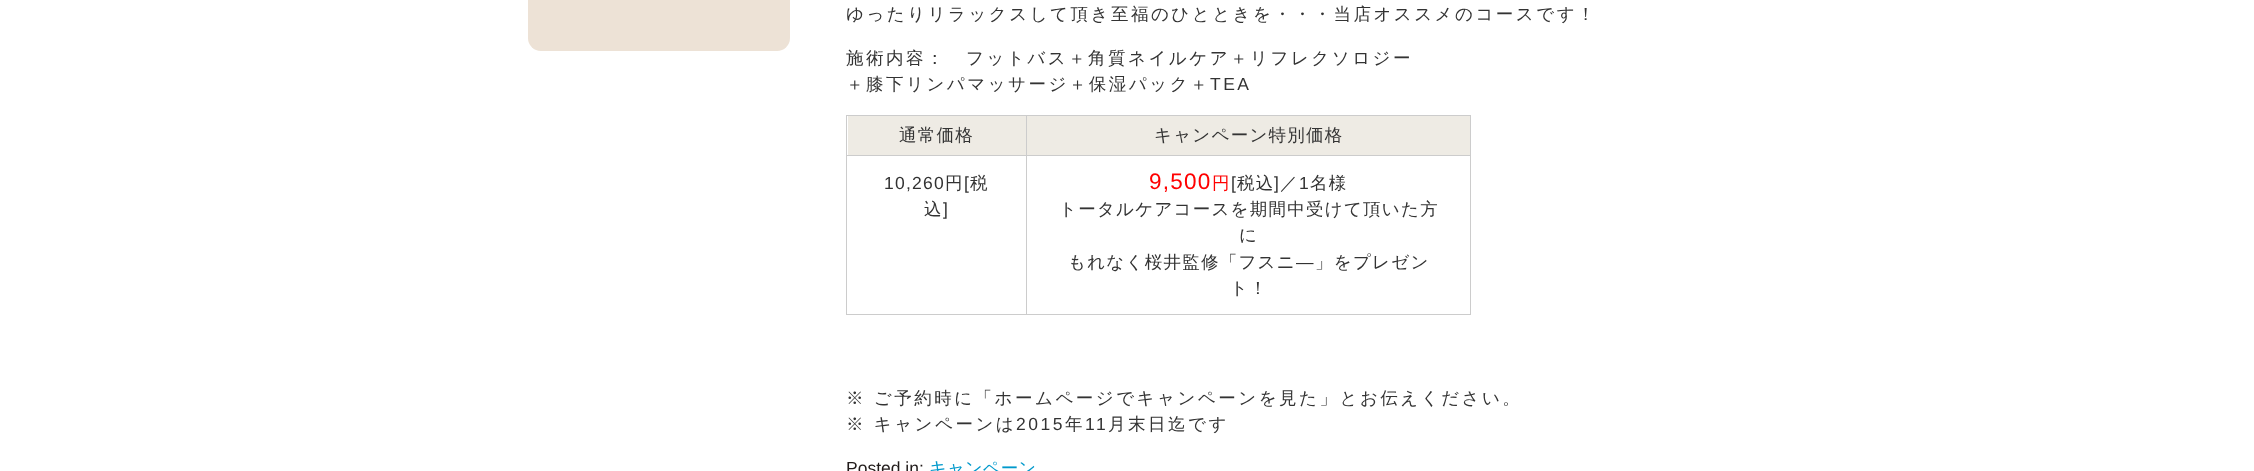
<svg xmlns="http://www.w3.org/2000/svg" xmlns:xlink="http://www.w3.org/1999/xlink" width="2254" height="471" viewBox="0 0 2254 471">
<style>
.cls-1{font:500 17.5px WenQuanYi Zen Hei;letter-spacing:2.5px;fill:#333333}
.cls-2{font:17.5px Liberation Sans;letter-spacing:2.5px;fill:#333333}
.cls-3{font:500 17.5px WenQuanYi Zen Hei;letter-spacing:1.25px;fill:#333333}
.cls-4{font:17.5px Liberation Sans;letter-spacing:1.25px;fill:#333333}
.cls-5{font:22.5px Liberation Sans;letter-spacing:1.25px;fill:#ff0000}
.cls-6{font:500 17.5px WenQuanYi Zen Hei;letter-spacing:1.25px;fill:#ff0000}
.cls-7{font:17.5px Liberation Sans;fill:#211b1a}
.cls-8{font:500 17.5px WenQuanYi Zen Hei;fill:#0099cc}
</style>
<rect width="100%" height="100%" fill="#ffffff"/>
<rect fill="#ede2d6" x="528" y="-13" width="262" height="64" rx="13"/>
<rect fill="#cccccc" x="846" y="115" width="625" height="1"/>
<rect fill="#cccccc" x="846" y="115" width="1" height="200"/>
<rect fill="#eeebe4" x="848" y="116" width="178" height="39"/>
<rect fill="#cccccc" x="1470" y="115" width="1" height="200"/>
<rect fill="#cccccc" x="1026" y="314" width="445" height="1"/>
<rect fill="#cccccc" x="1026" y="155" width="1" height="160"/>
<rect fill="#cccccc" x="1026" y="155" width="445" height="1"/>
<rect fill="#cccccc" x="1026" y="115" width="1" height="41"/>
<rect fill="#cccccc" x="846" y="155" width="182" height="1"/>
<rect fill="#eeebe4" x="1027" y="116" width="443" height="39"/>
<rect fill="#cccccc" x="846" y="314" width="182" height="1"/>
<text class="cls-1" x="846" y="20">ゆったりリラックスして頂き至福のひとときを・・・当店オススメのコースです！</text>
<text class="cls-1"><tspan x="846" y="64">施術内容：　フットバス＋角質ネイルケア＋リフレクソロジー</tspan><tspan x="846" y="90">＋膝下リンパマッサージ＋保湿パック＋</tspan></text>
<text class="cls-2" x="1210" y="90">TEA</text>
<text class="cls-3" x="899" y="141">通常価格</text>
<text class="cls-3" x="1154" y="141">キャンペーン特別価格</text>
<text class="cls-4" x="884" y="189">10,260</text>
<text class="cls-3" x="945" y="189">円</text>
<text class="cls-4" x="964" y="189">[</text>
<text class="cls-3" x="970" y="189">税</text>
<text class="cls-3" x="924" y="215">込</text>
<text class="cls-4" x="943" y="215">]</text>
<text class="cls-5" x="1149" y="189">9,500</text>
<text class="cls-6" x="1212" y="189">円</text>
<text class="cls-4" x="1231" y="189">[</text>
<text class="cls-3" x="1237" y="189">税込</text>
<text class="cls-4" x="1274" y="189">]</text>
<text class="cls-3" x="1280" y="189">／</text>
<text class="cls-4" x="1299" y="189">1</text>
<text class="cls-3" x="1310" y="189">名様</text>
<text class="cls-3" x="1059" y="215">トータルケアコースを期間中受けて頂いた方</text>
<text class="cls-3" x="1239" y="241">に</text>
<text class="cls-3" x="1068" y="268">もれなく桜井監修「フスニ</text>
<text class="cls-4" x="1296" y="268">―</text>
<text class="cls-3" x="1315" y="268">」をプレゼン</text>
<text class="cls-3" x="1230" y="294">ト！</text>
<text class="cls-1"><tspan x="846" y="404">※ ご予約時に「ホームページでキャンペーンを見た」とお伝えください。</tspan><tspan x="846" y="430">※ キャンペーンは</tspan></text>
<text class="cls-2" x="1016" y="430">2015</text>
<text class="cls-1" x="1065" y="430">年</text>
<text class="cls-2" x="1085" y="430">11</text>
<text class="cls-1" x="1108" y="430">月末日迄です</text>
<text class="cls-7" x="846" y="474">Posted in:</text>
<text class="cls-8" x="929" y="474">キャンペーン</text>
</svg>
